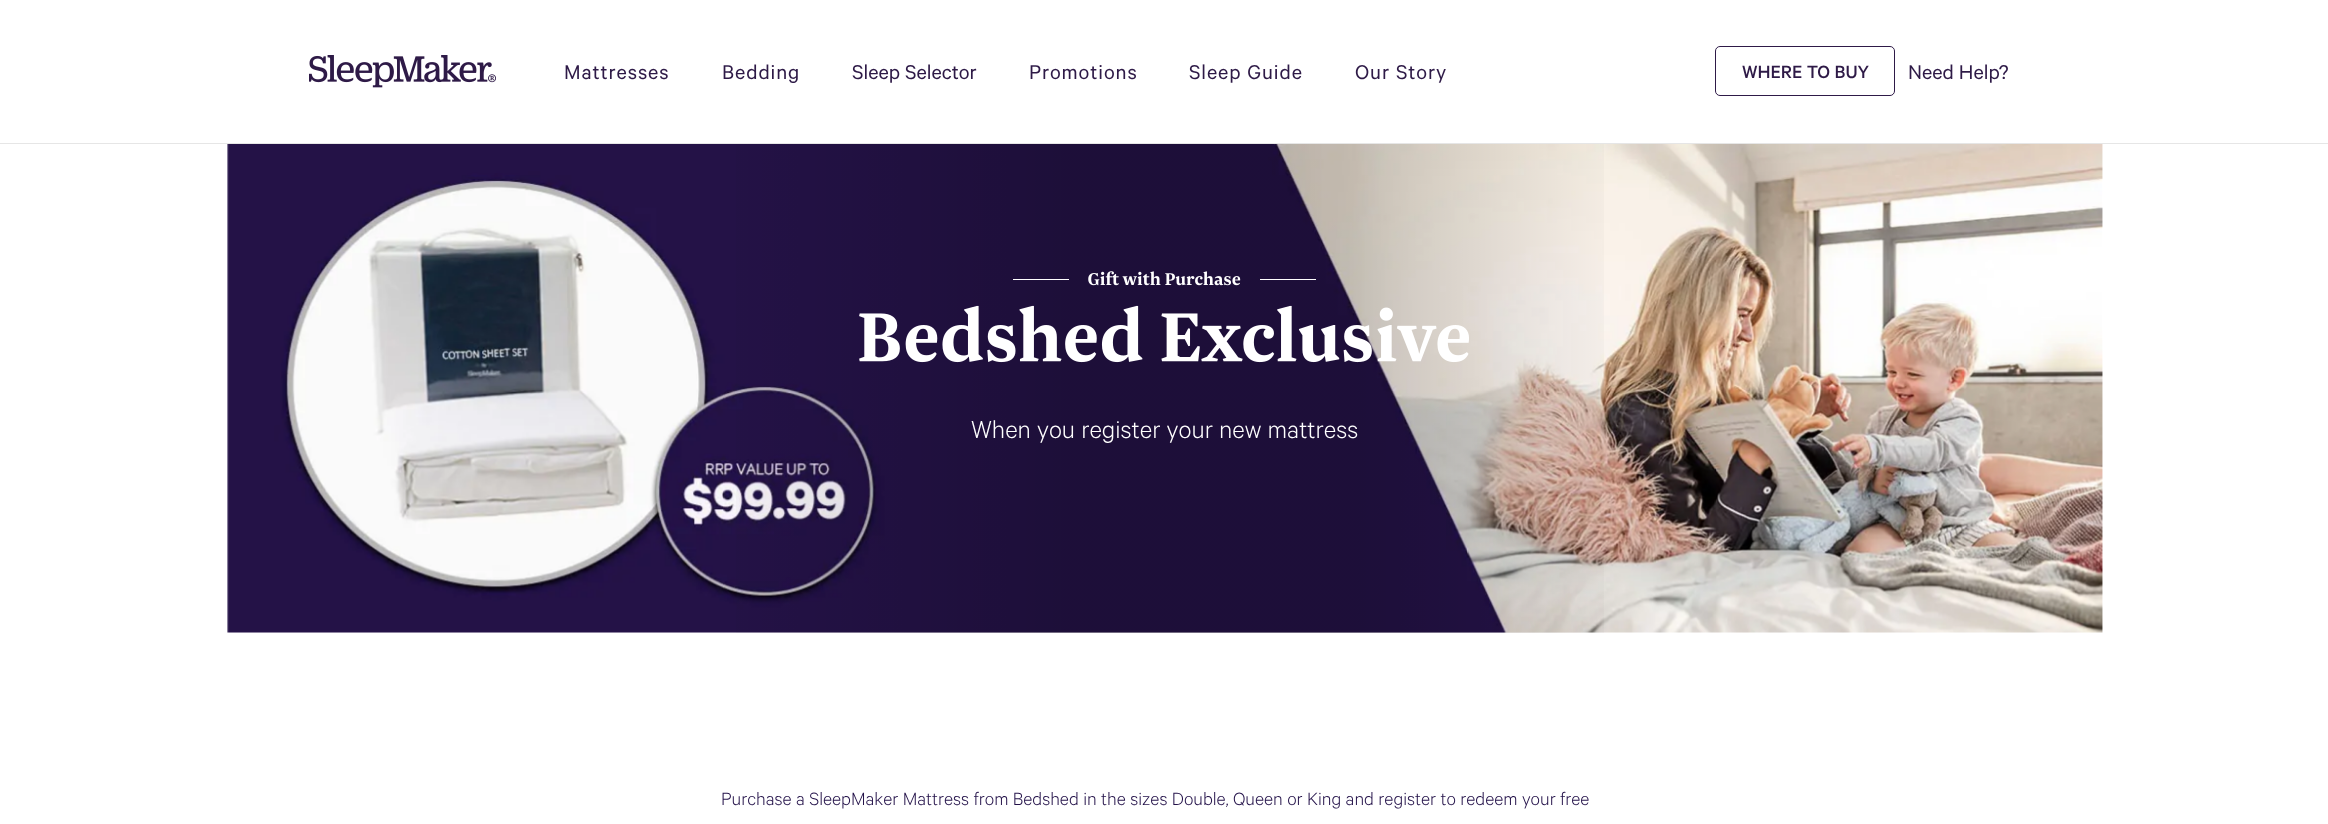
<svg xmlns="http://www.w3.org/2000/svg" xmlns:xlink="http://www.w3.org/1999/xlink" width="2328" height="824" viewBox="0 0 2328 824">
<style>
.cls-1{font:22.5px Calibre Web;letter-spacing:0.9px;fill:#2e1a47}
.cls-2{font:22.5px Calibre Web;fill:#2e1a47}
.cls-3{font:500 20px Calibre Web;fill:#2e1a47}
.cls-4{font:300 27.5px Calibre Web;fill:#ffffff}
.cls-5{font:300 20px Calibre Web;fill:#221048}
</style>
<defs>
<linearGradient id="g1" gradientUnits="userSpaceOnUse" x1="1634" y1="388" x2="696" y2="388"><stop offset="0" stop-color="#000000" stop-opacity="0"/><stop offset="0.3" stop-color="#000000" stop-opacity="0.2"/><stop offset="0.6" stop-color="#000000" stop-opacity="0.2"/><stop offset="1" stop-color="#000000" stop-opacity="0"/></linearGradient>
</defs>
<rect width="100%" height="100%" fill="#ffffff"/>
<rect fill="#e6e6e6" x="0" y="143" width="2328" height="1"/>
<image xlink:href="image0.png" x="309" y="55" width="187" height="33"/>
<rect fill="none" stroke="#2e1a47" x="1715.5" y="46.5" width="179" height="49" rx="4.5"/>
<image xlink:href="image1.png" x="227" y="144" width="1876" height="489"/>
<rect fill="url(#g1)" x="736" y="144" width="868" height="489"/>
<rect fill="#ffffff" x="1013" y="279" width="56" height="1"/>
<image xlink:href="image2.png" x="1088" y="271" width="153" height="15"/>
<rect fill="#ffffff" x="1260" y="279" width="56" height="1"/>
<image xlink:href="image3.png" x="859" y="305" width="610" height="58"/>
<text class="cls-1" x="564" y="79">Mattresses</text>
<text class="cls-1" x="722" y="79">Bedding</text>
<text class="cls-2" x="852" y="79">Sleep Selector</text>
<text class="cls-1" x="1029" y="79">Promotions</text>
<text class="cls-1" x="1189" y="79">Sleep Guide</text>
<text class="cls-1" x="1355" y="79">Our Story</text>
<text class="cls-3" x="1742" y="78">WHERE TO BUY</text>
<text class="cls-2" x="1908" y="79">Need Help?</text>
<text class="cls-4" x="971" y="438">When you register your new mattress</text>
<text class="cls-5" x="721" y="805">Purchase a SleepMaker Mattress from Bedshed in the sizes Double, Queen or King and register to redeem your free</text>
</svg>
